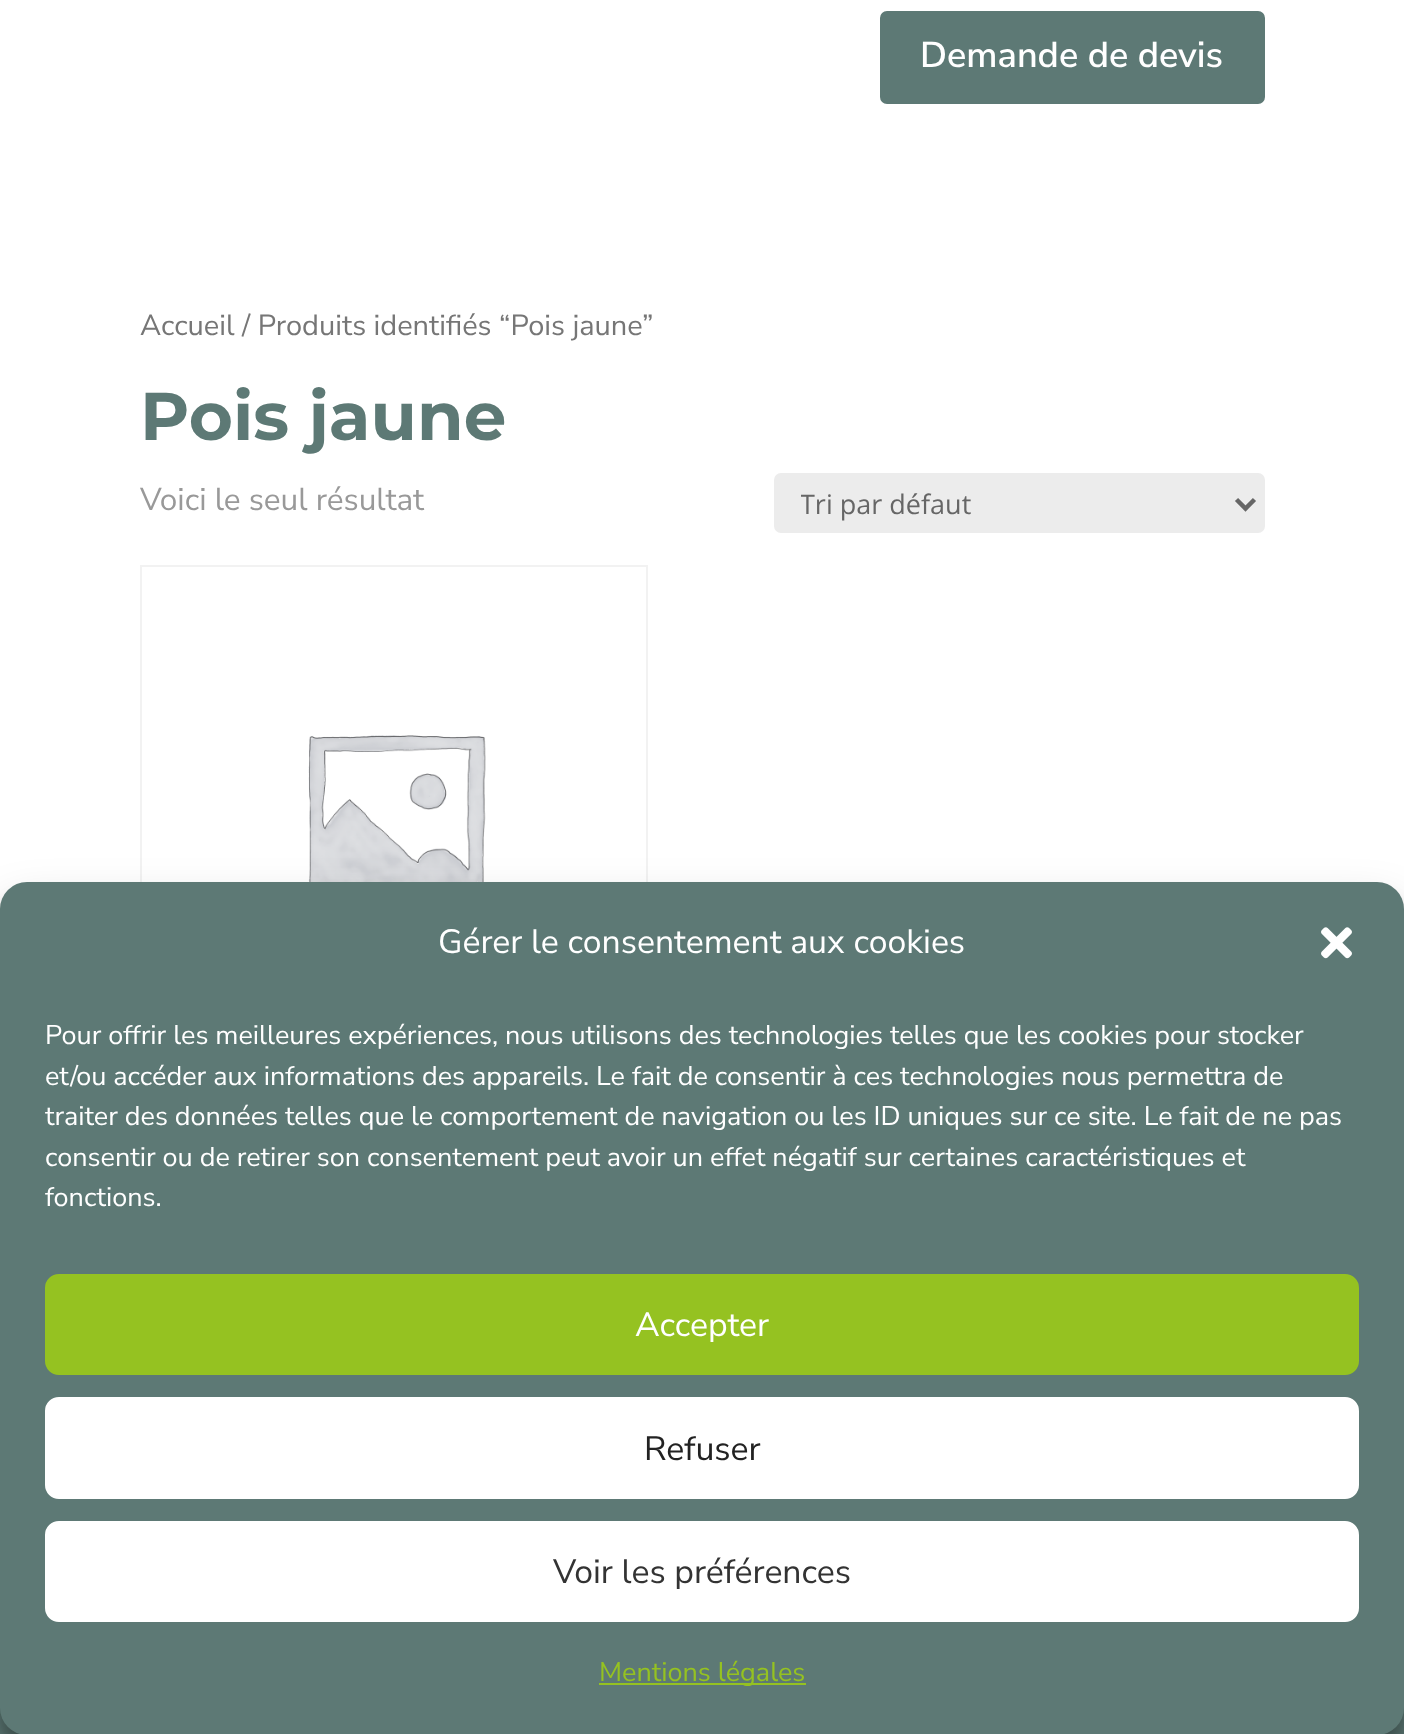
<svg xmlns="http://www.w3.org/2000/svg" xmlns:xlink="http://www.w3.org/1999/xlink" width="1404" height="1734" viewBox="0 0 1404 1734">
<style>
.cls-1{font:600 36px Nunito Sans;fill:#ffffff}
.cls-2{font:29px Nunito Sans;fill:#767676}
.cls-3{font:bold 67.5px Montserrat;fill:#5d7975}
.cls-4{font:31.5px Nunito Sans;fill:#999999}
.cls-5{font:27px Open Sans;fill:#666666}
.cls-6{font:33.75px Nunito Sans;fill:#ffffff}
.cls-7{font:27px Nunito Sans;fill:#ffffff}
.cls-8{font:33.75px Nunito Sans;fill:#222222}
.cls-9{font:33.75px Nunito Sans;fill:#333333}
.cls-10{font:27px Nunito Sans;fill:#95c221}
</style>
<defs>
<clipPath id="clip1"><rect x="801" y="482" width="410" height="42"/></clipPath>
</defs>
<rect width="100%" height="100%" fill="#ffffff"/>
<rect fill="#5d7975" stroke="#5d7975" stroke-width="5" x="882.5" y="13.5" width="380" height="88" rx="4.5"/>
<rect fill="#ececec" x="774" y="473" width="491" height="60" rx="7"/>
<path fill="none" stroke="#666666" stroke-width="4.5" d="M1236.5 499.5L1245.5 508.5L1254.5 499.5"/>
<rect fill="none" stroke="#f2f2f2" stroke-width="2" x="141" y="566" width="506" height="506"/>
<image xlink:href="image0.png" x="308" y="735" width="178" height="147"/>
<rect fill="#5d7975" x="0" y="1708" width="1404" height="26"/>
<rect fill="#000000" fill-opacity="0.23" filter="blur(7px)" x="0" y="896" width="1404" height="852" rx="27"/>
<rect fill="#000000" fill-opacity="0.19" filter="blur(22.5px)" x="0" y="905" width="1404" height="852" rx="27"/>
<rect fill="#5d7975" x="0" y="882" width="1404" height="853" rx="27"/>
<image xlink:href="image1.png" x="1321" y="927" width="31" height="32"/>
<rect fill="#95c221" stroke="#95c221" stroke-width="2" x="46" y="1275" width="1312" height="99" rx="13"/>
<rect fill="#ffffff" stroke="#ffffff" stroke-width="2" x="46" y="1398" width="1312" height="100" rx="13"/>
<rect fill="#ffffff" stroke="#ffffff" stroke-width="2" x="46" y="1522" width="1312" height="99" rx="13"/>
<rect fill="#95c221" x="599" y="1683" width="207" height="2"/>
<text class="cls-1" x="920" y="67">Demande de devis</text>
<text class="cls-2" x="140" y="335">Accueil / Produits identifiés “Pois jaune”</text>
<text class="cls-3" x="140" y="440">Pois jaune</text>
<text class="cls-4" x="140" y="510">Voici le seul résultat</text>
<g clip-path="url(#clip1)">
<text class="cls-5" x="800" y="514">Tri par défaut</text>
</g>
<text class="cls-6" x="438" y="953">Gérer le consentement aux cookies</text>
<text class="cls-7"><tspan x="45" y="1044">Pour offrir les meilleures expériences, nous utilisons des technologies telles que les cookies pour stocker</tspan><tspan x="45" y="1085">et/ou accéder aux informations des appareils. Le fait de consentir à ces technologies nous permettra de</tspan><tspan x="45" y="1125">traiter des données telles que le comportement de navigation ou les ID uniques sur ce site. Le fait de ne pas</tspan><tspan x="45" y="1166">consentir ou de retirer son consentement peut avoir un effet négatif sur certaines caractéristiques et</tspan><tspan x="45" y="1206">fonctions.</tspan></text>
<text class="cls-6" x="635" y="1336">Accepter</text>
<text class="cls-8" x="644" y="1460">Refuser</text>
<text class="cls-9" x="553" y="1583">Voir les préférences</text>
<text class="cls-10" x="599" y="1681">Mentions légales</text>
</svg>
